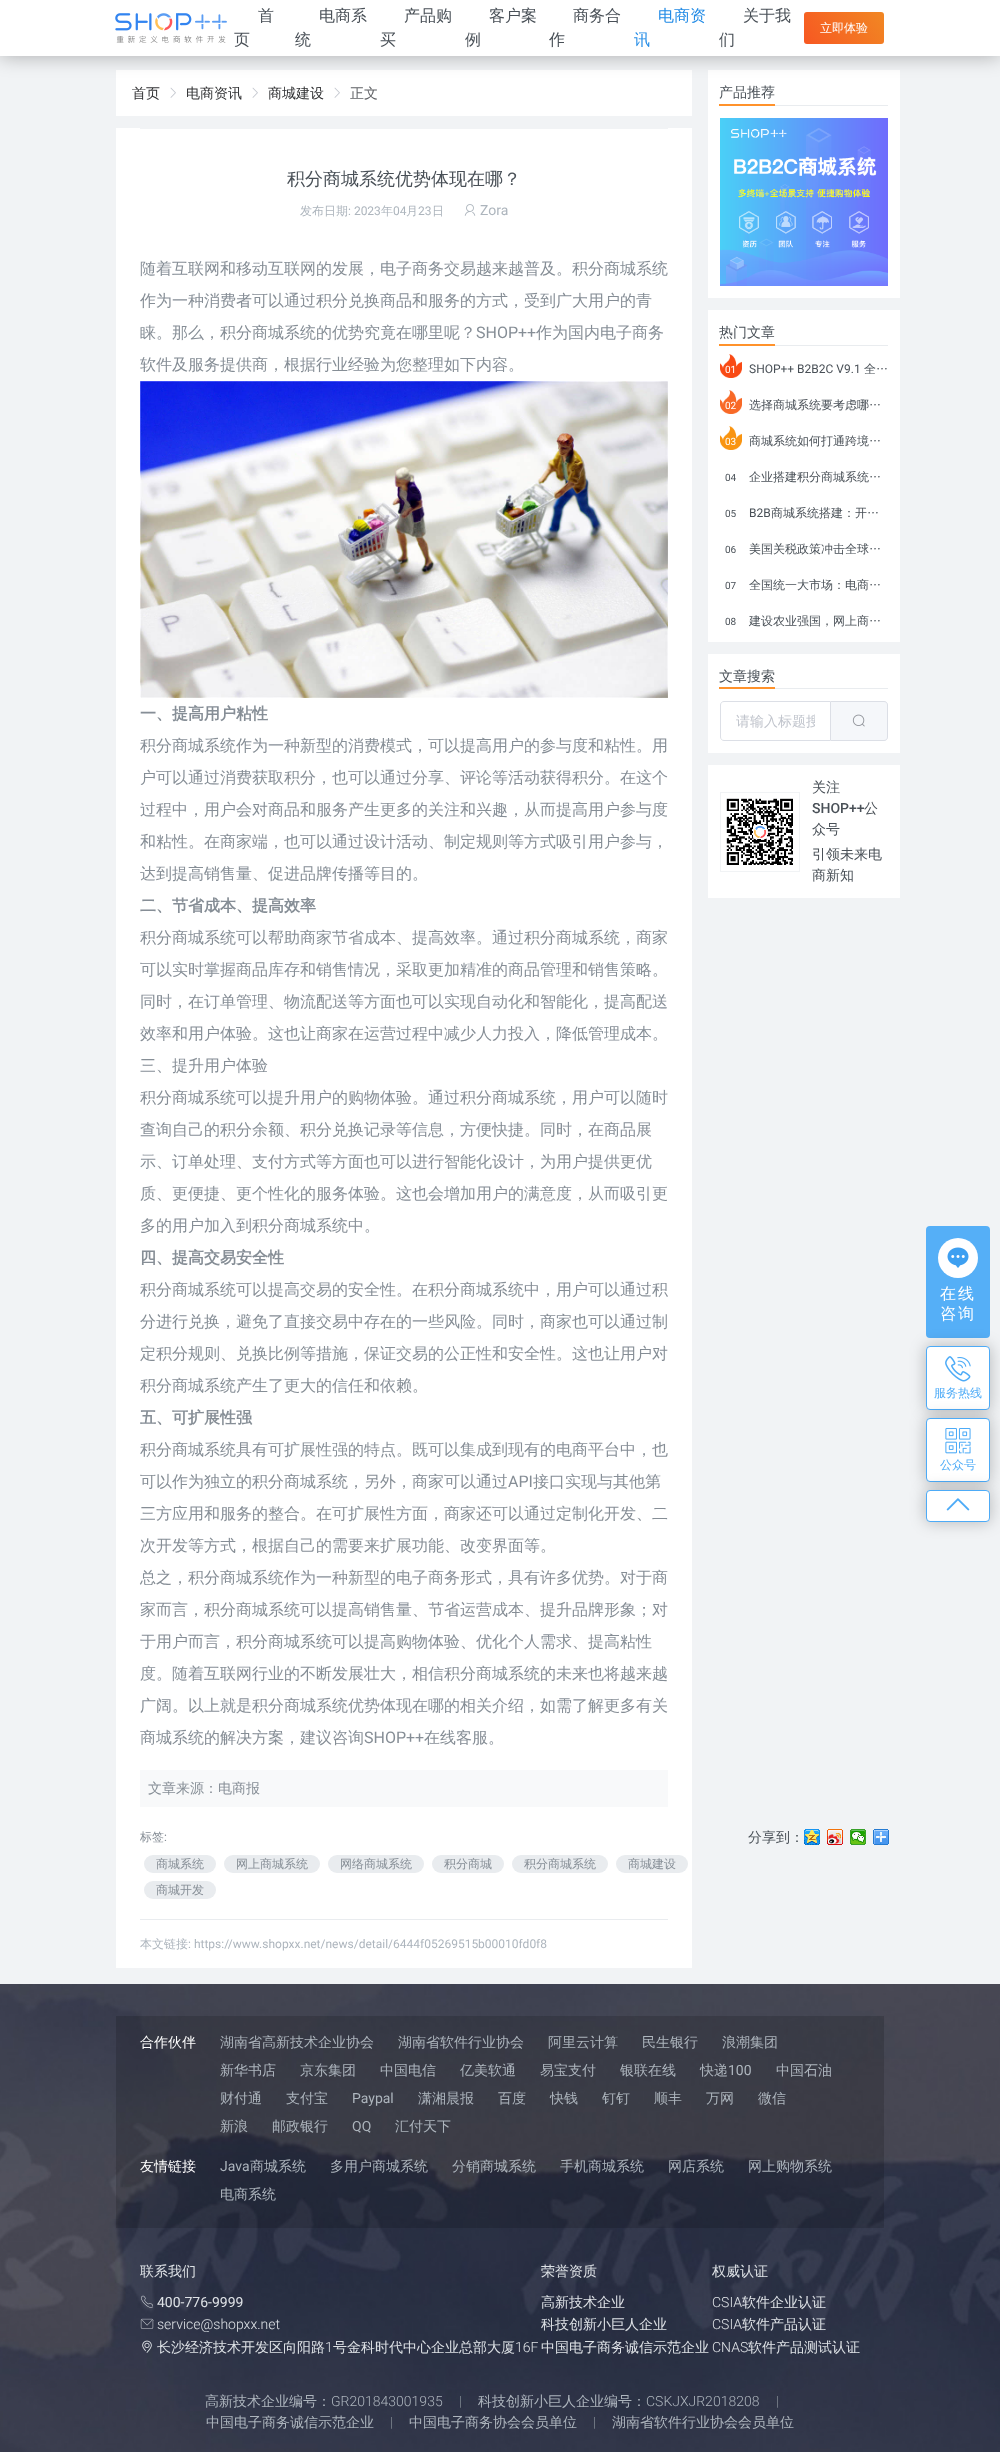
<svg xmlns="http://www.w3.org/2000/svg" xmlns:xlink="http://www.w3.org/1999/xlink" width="1000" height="2452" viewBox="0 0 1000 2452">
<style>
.cls-1{font:500 16px WenQuanYi Zen Hei;fill:#495057}
.cls-2{font:500 16px WenQuanYi Zen Hei;fill:#228be6}
.cls-3{font:500 12px WenQuanYi Zen Hei;fill:#ffffff}
.cls-4{font:500 14px WenQuanYi Zen Hei;fill:#303133}
.cls-5{font:500 14px WenQuanYi Zen Hei;fill:#606266}
.cls-6{font:500 18px WenQuanYi Zen Hei;fill:#495057}
.cls-7{font:500 12px WenQuanYi Zen Hei;fill:#adb5bd}
.cls-8{font:12px Roboto;fill:#adb5bd}
.cls-9{font:14px Roboto;fill:#adb5bd}
.cls-10{font:500 16px WenQuanYi Zen Hei;fill:#868e96}
.cls-11{font:16px Roboto;fill:#868e96}
.cls-12{font:bold 16px WenQuanYi Zen Hei;fill:#868e96}
.cls-13{font:500 14px WenQuanYi Zen Hei;fill:#868e96}
.cls-14{font:500 12px WenQuanYi Zen Hei;fill:#868e96}
.cls-15{font:12px Roboto;fill:#868e96}
.cls-16{font:500 14px WenQuanYi Zen Hei;fill:#495057}
.cls-17{font:10px Roboto;fill:#ffffff}
.cls-18{font:12px Roboto;fill:#495057}
.cls-19{font:500 12px WenQuanYi Zen Hei;fill:#495057}
.cls-20{font:10px Roboto;fill:#495057}
.cls-21{font:500 14px WenQuanYi Zen Hei;fill:#c0c4cc}
.cls-22{font:500 14px Roboto;fill:#495057}
.cls-23{font:500 16px WenQuanYi Zen Hei;letter-spacing:2px;fill:#ffffff}
.cls-24{font:500 12px WenQuanYi Zen Hei;fill:#4dabf7}
.cls-25{font:500 14px WenQuanYi Zen Hei;fill:#ffffff}
.cls-26{font:500 14px WenQuanYi Zen Hei;fill:#adb5bd}
.cls-27{font:500 14px WenQuanYi Zen Hei;fill:#dee2e6}
.cls-28{font:14px Roboto;fill:#dee2e6}
.cls-29{font:300 14px Roboto;fill:#dee2e6}
.cls-30{font:300 14px Roboto;fill:#adb5bd}
.cls-31{font:300 14px Roboto;fill:#868e96}
</style>
<defs>
<linearGradient id="g1" gradientUnits="userSpaceOnUse" x1="810" y1="52" x2="878" y2="3.9"><stop offset="0" stop-color="#f75822"/><stop offset="1" stop-color="#f18723"/></linearGradient>
<clipPath id="clip1"><rect x="736" y="713" width="79" height="18"/></clipPath>
</defs>
<rect width="100%" height="100%" fill="#f1f3f5"/>
<rect fill="#ffffff" x="116" y="70" width="576" height="46"/>
<rect fill="#ffffff" x="708" y="70" width="192" height="228"/>
<rect fill="#000000" fill-opacity="0.3" filter="blur(10px)" x="0" y="0" width="1000" height="56"/>
<rect fill="#ffffff" x="0" y="0" width="1000" height="56"/>
<image xlink:href="image0.png" x="115" y="13" width="112" height="30"/>
<rect fill="url(#g1)" x="804" y="12" width="80" height="32" rx="3"/>
<image xlink:href="image1.png" x="170" y="87" width="6" height="11"/>
<image xlink:href="image1.png" x="252" y="87" width="6" height="11"/>
<image xlink:href="image1.png" x="334" y="87" width="6" height="11"/>
<rect fill="#ffffff" x="116" y="128" width="576" height="1840"/>
<rect fill="#f1f3f5" x="140" y="128" width="528" height="1"/>
<image xlink:href="image2.png" x="464" y="204" width="12" height="12"/>
<image xlink:href="image3.png" x="140" y="381" width="528" height="317"/>
<rect fill="#f8f9fa" x="140" y="1770" width="528" height="37"/>
<rect fill="#e9ecef" x="144" y="1855" width="72" height="18" rx="9"/>
<rect fill="#e9ecef" x="224" y="1855" width="96" height="18" rx="9"/>
<rect fill="#e9ecef" x="328" y="1855" width="96" height="18" rx="9"/>
<rect fill="#e9ecef" x="432" y="1855" width="72" height="18" rx="9"/>
<rect fill="#e9ecef" x="512" y="1855" width="96" height="18" rx="9"/>
<rect fill="#e9ecef" x="616" y="1855" width="72" height="18" rx="9"/>
<rect fill="#e9ecef" x="144" y="1881" width="72" height="18" rx="9"/>
<image xlink:href="image4.png" x="804" y="1829" width="16" height="16"/>
<image xlink:href="image5.png" x="827" y="1829" width="16" height="16"/>
<image xlink:href="image6.png" x="850" y="1829" width="16" height="16"/>
<image xlink:href="image7.png" x="873" y="1829" width="16" height="16"/>
<rect fill="#e9ecef" x="140" y="1919" width="528" height="1"/>
<rect fill="#e9ecef" x="775" y="105" width="113" height="1"/>
<rect fill="#ff922b" x="719" y="104" width="56" height="2"/>
<image xlink:href="image8.png" x="720" y="118" width="168" height="168"/>
<rect fill="#ffffff" x="708" y="310" width="192" height="332"/>
<rect fill="#e9ecef" x="775" y="345" width="113" height="1"/>
<rect fill="#ff922b" x="719" y="344" width="56" height="2"/>
<image xlink:href="image9.png" x="720" y="354" width="22" height="24"/>
<image xlink:href="image10.png" x="720" y="390" width="22" height="24"/>
<image xlink:href="image11.png" x="720" y="426" width="22" height="24"/>
<rect fill="#ffffff" x="708" y="654" width="192" height="99"/>
<rect fill="#e9ecef" x="775" y="688" width="113" height="1"/>
<rect fill="#ff922b" x="719" y="687" width="56" height="2"/>
<path fill="none" stroke="#dcdfe6" d="M724 701.5H830.5V740.5H724C722 740.5 720.5 739 720.5 737V705C720.5 703 722 701.5 724 701.5Z"/>
<path fill="#f5f7fa" d="M831 701H884C886 701 888 703 888 705V737C888 739 886 741 884 741H831Z"/>
<path fill="#dcdfe6" fill-rule="evenodd" d="M831 701H884C886 701 888 703 888 705V737C888 739 886 741 884 741H831ZM831 702H884C886 702 887 703 887 705V737C887 739 886 740 884 740H831Z"/>
<image xlink:href="image12.png" x="852" y="714" width="13" height="13"/>
<rect fill="#ffffff" x="708" y="765" width="192" height="133"/>
<rect fill="none" stroke="#f1f3f5" x="720.5" y="792.5" width="79" height="79"/>
<image xlink:href="image13.png" x="726" y="798" width="67" height="67"/>
<rect fill="#55aff7" x="926" y="1226" width="64" height="112" rx="4"/>
<circle fill="#fefeff" cx="958" cy="1258" r="20"/>
<image xlink:href="image14.png" x="947" y="1247" width="22" height="21"/>
<rect fill="#000000" fill-opacity="0.25" filter="blur(8px)" x="926" y="1346" width="64" height="64" rx="4"/>
<rect fill="#ffffff" stroke="#4dabf7" x="926.5" y="1346.5" width="63" height="63" rx="3.5"/>
<image xlink:href="image15.png" x="945" y="1356" width="26" height="26"/>
<rect fill="#000000" fill-opacity="0.25" filter="blur(8px)" x="926" y="1418" width="64" height="64" rx="4"/>
<rect fill="#ffffff" stroke="#4dabf7" x="926.5" y="1418.5" width="63" height="63" rx="3.5"/>
<image xlink:href="image16.png" x="945" y="1428" width="26" height="26"/>
<rect fill="#000000" fill-opacity="0.25" filter="blur(8px)" x="926" y="1490" width="64" height="32" rx="4"/>
<rect fill="#ffffff" stroke="#4dabf7" x="926.5" y="1490.5" width="63" height="31" rx="3.5"/>
<image xlink:href="image17.png" x="946" y="1498" width="24" height="13"/>
<image xlink:href="image18.png" x="0" y="1984" width="1000" height="468"/>
<rect fill="#000000" fill-opacity="0.15" x="116" y="2016" width="768" height="212"/>
<image xlink:href="image19.png" x="141" y="2295" width="12" height="13"/>
<image xlink:href="image20.png" x="140" y="2318" width="14" height="11"/>
<image xlink:href="image21.png" x="142" y="2340" width="10" height="13"/>
<text class="cls-1" x="258" y="21">首</text>
<text class="cls-1" x="234" y="45">页</text>
<text class="cls-1" x="319" y="21">电商系</text>
<text class="cls-1" x="295" y="45">统</text>
<text class="cls-1" x="404" y="21">产品购</text>
<text class="cls-1" x="380" y="45">买</text>
<text class="cls-1" x="489" y="21">客户案</text>
<text class="cls-1" x="465" y="45">例</text>
<text class="cls-1" x="573" y="21">商务合</text>
<text class="cls-1" x="549" y="45">作</text>
<text class="cls-2" x="658" y="21">电商资</text>
<text class="cls-2" x="634" y="45">讯</text>
<text class="cls-1" x="743" y="21">关于我</text>
<text class="cls-1" x="719" y="45">们</text>
<text class="cls-3" x="820" y="32">立即体验</text>
<text class="cls-4" x="132" y="98">首页</text>
<text class="cls-4" x="186" y="98">电商资讯</text>
<text class="cls-4" x="268" y="98">商城建设</text>
<text class="cls-5" x="350" y="98">正文</text>
<text class="cls-6" x="287" y="185">积分商城系统优势体现在哪？</text>
<text class="cls-7" x="300" y="215">发布日期</text>
<text class="cls-8" x="348" y="215">: 2023</text>
<text class="cls-7" x="381" y="215">年</text>
<text class="cls-8" x="393" y="215">04</text>
<text class="cls-7" x="406" y="215">月</text>
<text class="cls-8" x="418" y="215">23</text>
<text class="cls-7" x="432" y="215">日</text>
<text class="cls-9" x="480" y="215">Zora</text>
<text class="cls-10" x="140" y="274">随着互联网和移动互联网的发展，电子商务交易越来越普及。积分商城系统</text>
<text class="cls-10" x="140" y="306">作为一种消费者可以通过积分兑换商品和服务的方式，受到广大用户的青</text>
<text class="cls-10" x="140" y="338">睐。那么，积分商城系统的优势究竟在哪里呢？</text>
<text class="cls-11" x="476" y="338">SHOP++</text>
<text class="cls-10" x="536" y="338">作为国内电子商务</text>
<text class="cls-10" x="140" y="370">软件及服务提供商，根据行业经验为您整理如下内容。</text>
<text class="cls-12" x="140" y="719">一、提高用户粘性</text>
<text class="cls-10" x="140" y="751">积分商城系统作为一种新型的消费模式，可以提高用户的参与度和粘性。用</text>
<text class="cls-10" x="140" y="783">户可以通过消费获取积分，也可以通过分享、评论等活动获得积分。在这个</text>
<text class="cls-10" x="140" y="815">过程中，用户会对商品和服务产生更多的关注和兴趣，从而提高用户参与度</text>
<text class="cls-10" x="140" y="847">和粘性。在商家端，也可以通过设计活动、制定规则等方式吸引用户参与，</text>
<text class="cls-10" x="140" y="879">达到提高销售量、促进品牌传播等目的。</text>
<text class="cls-12" x="140" y="911">二、节省成本、提高效率</text>
<text class="cls-10" x="140" y="943">积分商城系统可以帮助商家节省成本、提高效率。通过积分商城系统，商家</text>
<text class="cls-10" x="140" y="975">可以实时掌握商品库存和销售情况，采取更加精准的商品管理和销售策略。</text>
<text class="cls-10" x="140" y="1007">同时，在订单管理、物流配送等方面也可以实现自动化和智能化，提高配送</text>
<text class="cls-10" x="140" y="1039">效率和用户体验。这也让商家在运营过程中减少人力投入，降低管理成本。</text>
<text class="cls-10" x="140" y="1071">三、提升用户体验</text>
<text class="cls-10" x="140" y="1103">积分商城系统可以提升用户的购物体验。通过积分商城系统，用户可以随时</text>
<text class="cls-10" x="140" y="1135">查询自己的积分余额、积分兑换记录等信息，方便快捷。同时，在商品展</text>
<text class="cls-10" x="140" y="1167">示、订单处理、支付方式等方面也可以进行智能化设计，为用户提供更优</text>
<text class="cls-10" x="140" y="1199">质、更便捷、更个性化的服务体验。这也会增加用户的满意度，从而吸引更</text>
<text class="cls-10" x="140" y="1231">多的用户加入到积分商城系统中。</text>
<text class="cls-12" x="140" y="1263">四、提高交易安全性</text>
<text class="cls-10" x="140" y="1295">积分商城系统可以提高交易的安全性。在积分商城系统中，用户可以通过积</text>
<text class="cls-10" x="140" y="1327">分进行兑换，避免了直接交易中存在的一些风险。同时，商家也可以通过制</text>
<text class="cls-10" x="140" y="1359">定积分规则、兑换比例等措施，保证交易的公正性和安全性。这也让用户对</text>
<text class="cls-10" x="140" y="1391">积分商城系统产生了更大的信任和依赖。</text>
<text class="cls-12" x="140" y="1423">五、可扩展性强</text>
<text class="cls-10" x="140" y="1455">积分商城系统具有可扩展性强的特点。既可以集成到现有的电商平台中，也</text>
<text class="cls-10" x="140" y="1487">可以作为独立的积分商城系统，另外，商家可以通过</text>
<text class="cls-11" x="508" y="1487">API</text>
<text class="cls-10" x="533" y="1487">接口实现与其他第</text>
<text class="cls-10" x="140" y="1519">三方应用和服务的整合。在可扩展性方面，商家还可以通过定制化开发、二</text>
<text class="cls-10" x="140" y="1551">次开发等方式，根据自己的需要来扩展功能、改变界面等。</text>
<text class="cls-10" x="140" y="1583">总之，积分商城系统作为一种新型的电子商务形式，具有许多优势。对于商</text>
<text class="cls-10" x="140" y="1615">家而言，积分商城系统可以提高销售量、节省运营成本、提升品牌形象；对</text>
<text class="cls-10" x="140" y="1647">于用户而言，积分商城系统可以提高购物体验、优化个人需求、提高粘性</text>
<text class="cls-10" x="140" y="1679">度。随着互联网行业的不断发展壮大，相信积分商城系统的未来也将越来越</text>
<text class="cls-10" x="140" y="1711">广阔。以上就是积分商城系统优势体现在哪的相关介绍，如需了解更多有关</text>
<text class="cls-10" x="140" y="1743">商城系统的解决方案，建议咨询</text>
<text class="cls-11" x="364" y="1743">SHOP++</text>
<text class="cls-10" x="424" y="1743">在线客服。</text>
<text class="cls-13" x="148" y="1793">文章来源：电商报</text>
<text class="cls-14" x="140" y="1841">标签</text>
<text class="cls-15" x="164" y="1841">:</text>
<text class="cls-14" x="156" y="1868">商城系统</text>
<text class="cls-14" x="236" y="1868">网上商城系统</text>
<text class="cls-14" x="340" y="1868">网络商城系统</text>
<text class="cls-14" x="444" y="1868">积分商城</text>
<text class="cls-14" x="524" y="1868">积分商城系统</text>
<text class="cls-14" x="628" y="1868">商城建设</text>
<text class="cls-14" x="156" y="1894">商城开发</text>
<text class="cls-16" x="748" y="1842">分享到：</text>
<text class="cls-7" x="140" y="1948">本文链接</text>
<text class="cls-8" x="188" y="1948">: https://www.shopxx.net/news/detail/6444f05269515b00010fd0f8</text>
<text class="cls-16" x="719" y="97">产品推荐</text>
<text class="cls-16" x="719" y="337">热门文章</text>
<text class="cls-17" x="725" y="373">01</text>
<text class="cls-18" x="749" y="373">SHOP++ B2B2C V9.1</text>
<text class="cls-19" x="864" y="373">全…</text>
<text class="cls-17" x="725" y="409">02</text>
<text class="cls-19" x="749" y="409">选择商城系统要考虑哪…</text>
<text class="cls-17" x="725" y="445">03</text>
<text class="cls-19" x="749" y="445">商城系统如何打通跨境…</text>
<text class="cls-20" x="725" y="481">04</text>
<text class="cls-19" x="749" y="481">企业搭建积分商城系统…</text>
<text class="cls-20" x="725" y="517">05</text>
<text class="cls-18" x="749" y="517">B2B</text>
<text class="cls-19" x="771" y="517">商城系统搭建：开…</text>
<text class="cls-20" x="725" y="553">06</text>
<text class="cls-19" x="749" y="553">美国关税政策冲击全球…</text>
<text class="cls-20" x="725" y="589">07</text>
<text class="cls-19" x="749" y="589">全国统一大市场：电商…</text>
<text class="cls-20" x="725" y="625">08</text>
<text class="cls-19" x="749" y="625">建设农业强国，网上商…</text>
<text class="cls-16" x="719" y="681">文章搜索</text>
<g clip-path="url(#clip1)">
<text class="cls-21" x="736" y="726">请输入标题搜</text>
</g>
<text class="cls-16" x="812" y="792">关注</text>
<text class="cls-22" x="812" y="813">SHOP++</text>
<text class="cls-16" x="864" y="813">公</text>
<text class="cls-16"><tspan x="812" y="834">众号</tspan><tspan x="812" y="859">引领未来电</tspan><tspan x="812" y="880">商新知</tspan></text>
<text class="cls-23"><tspan x="940" y="1299">在线</tspan><tspan x="940" y="1319">咨询</tspan></text>
<text class="cls-24" x="934" y="1397">服务热线</text>
<text class="cls-24" x="940" y="1469">公众号</text>
<text class="cls-25" x="140" y="2047">合作伙伴</text>
<text class="cls-26" x="220" y="2047">湖南省高新技术企业协会</text>
<text class="cls-26" x="398" y="2047">湖南省软件行业协会</text>
<text class="cls-26" x="548" y="2047">阿里云计算</text>
<text class="cls-26" x="642" y="2047">民生银行</text>
<text class="cls-26" x="722" y="2047">浪潮集团</text>
<text class="cls-26" x="220" y="2075">新华书店</text>
<text class="cls-26" x="300" y="2075">京东集团</text>
<text class="cls-26" x="380" y="2075">中国电信</text>
<text class="cls-26" x="460" y="2075">亿美软通</text>
<text class="cls-26" x="540" y="2075">易宝支付</text>
<text class="cls-26" x="620" y="2075">银联在线</text>
<text class="cls-26" x="700" y="2075">快递</text>
<text class="cls-9" x="728" y="2075">100</text>
<text class="cls-26" x="776" y="2075">中国石油</text>
<text class="cls-26" x="220" y="2103">财付通</text>
<text class="cls-26" x="286" y="2103">支付宝</text>
<text class="cls-9" x="352" y="2103">Paypal</text>
<text class="cls-26" x="418" y="2103">潇湘晨报</text>
<text class="cls-26" x="498" y="2103">百度</text>
<text class="cls-26" x="550" y="2103">快钱</text>
<text class="cls-26" x="602" y="2103">钉钉</text>
<text class="cls-26" x="654" y="2103">顺丰</text>
<text class="cls-26" x="706" y="2103">万网</text>
<text class="cls-26" x="758" y="2103">微信</text>
<text class="cls-26" x="220" y="2131">新浪</text>
<text class="cls-26" x="272" y="2131">邮政银行</text>
<text class="cls-9" x="352" y="2131">QQ</text>
<text class="cls-26" x="395" y="2131">汇付天下</text>
<text class="cls-25" x="140" y="2171">友情链接</text>
<text class="cls-9" x="220" y="2171">Java</text>
<text class="cls-26" x="250" y="2171">商城系统</text>
<text class="cls-26" x="330" y="2171">多用户商城系统</text>
<text class="cls-26" x="452" y="2171">分销商城系统</text>
<text class="cls-26" x="560" y="2171">手机商城系统</text>
<text class="cls-26" x="668" y="2171">网店系统</text>
<text class="cls-26" x="748" y="2171">网上购物系统</text>
<text class="cls-26" x="220" y="2199">电商系统</text>
<text class="cls-27" x="140" y="2276">联系我们</text>
<text class="cls-28" x="157" y="2307">400-776-9999</text>
<text class="cls-29" x="157" y="2329">service@shopxx.net</text>
<text class="cls-27" x="157" y="2352">长沙经济技术开发区向阳路</text>
<text class="cls-29" x="325" y="2352">1</text>
<text class="cls-27" x="333" y="2352">号金科时代中心企业总部大厦</text>
<text class="cls-29" x="515" y="2352">16F</text>
<text class="cls-27" x="541" y="2276">荣誉资质</text>
<text class="cls-27"><tspan x="541" y="2307">高新技术企业</tspan><tspan x="541" y="2329">科技创新小巨人企业</tspan><tspan x="541" y="2352">中国电子商务诚信示范企业</tspan></text>
<text class="cls-27" x="712" y="2276">权威认证</text>
<text class="cls-29" x="712" y="2307">CSIA</text>
<text class="cls-27" x="742" y="2307">软件企业认证</text>
<text class="cls-29" x="712" y="2329">CSIA</text>
<text class="cls-27" x="742" y="2329">软件产品认证</text>
<text class="cls-29" x="712" y="2352">CNAS</text>
<text class="cls-27" x="748" y="2352">软件产品测试认证</text>
<text class="cls-26" x="205" y="2406">高新技术企业编号：</text>
<text class="cls-30" x="331" y="2406">GR201843001935</text>
<text class="cls-31" x="459" y="2406">|</text>
<text class="cls-26" x="478" y="2406">科技创新小巨人企业编号：</text>
<text class="cls-30" x="646" y="2406">CSKJXJR2018208</text>
<text class="cls-31" x="776" y="2406">|</text>
<text class="cls-26" x="206" y="2427">中国电子商务诚信示范企业</text>
<text class="cls-31" x="390" y="2427">|</text>
<text class="cls-26" x="409" y="2427">中国电子商务协会会员单位</text>
<text class="cls-31" x="593" y="2427">|</text>
<text class="cls-26" x="612" y="2427">湖南省软件行业协会会员单位</text>
</svg>
